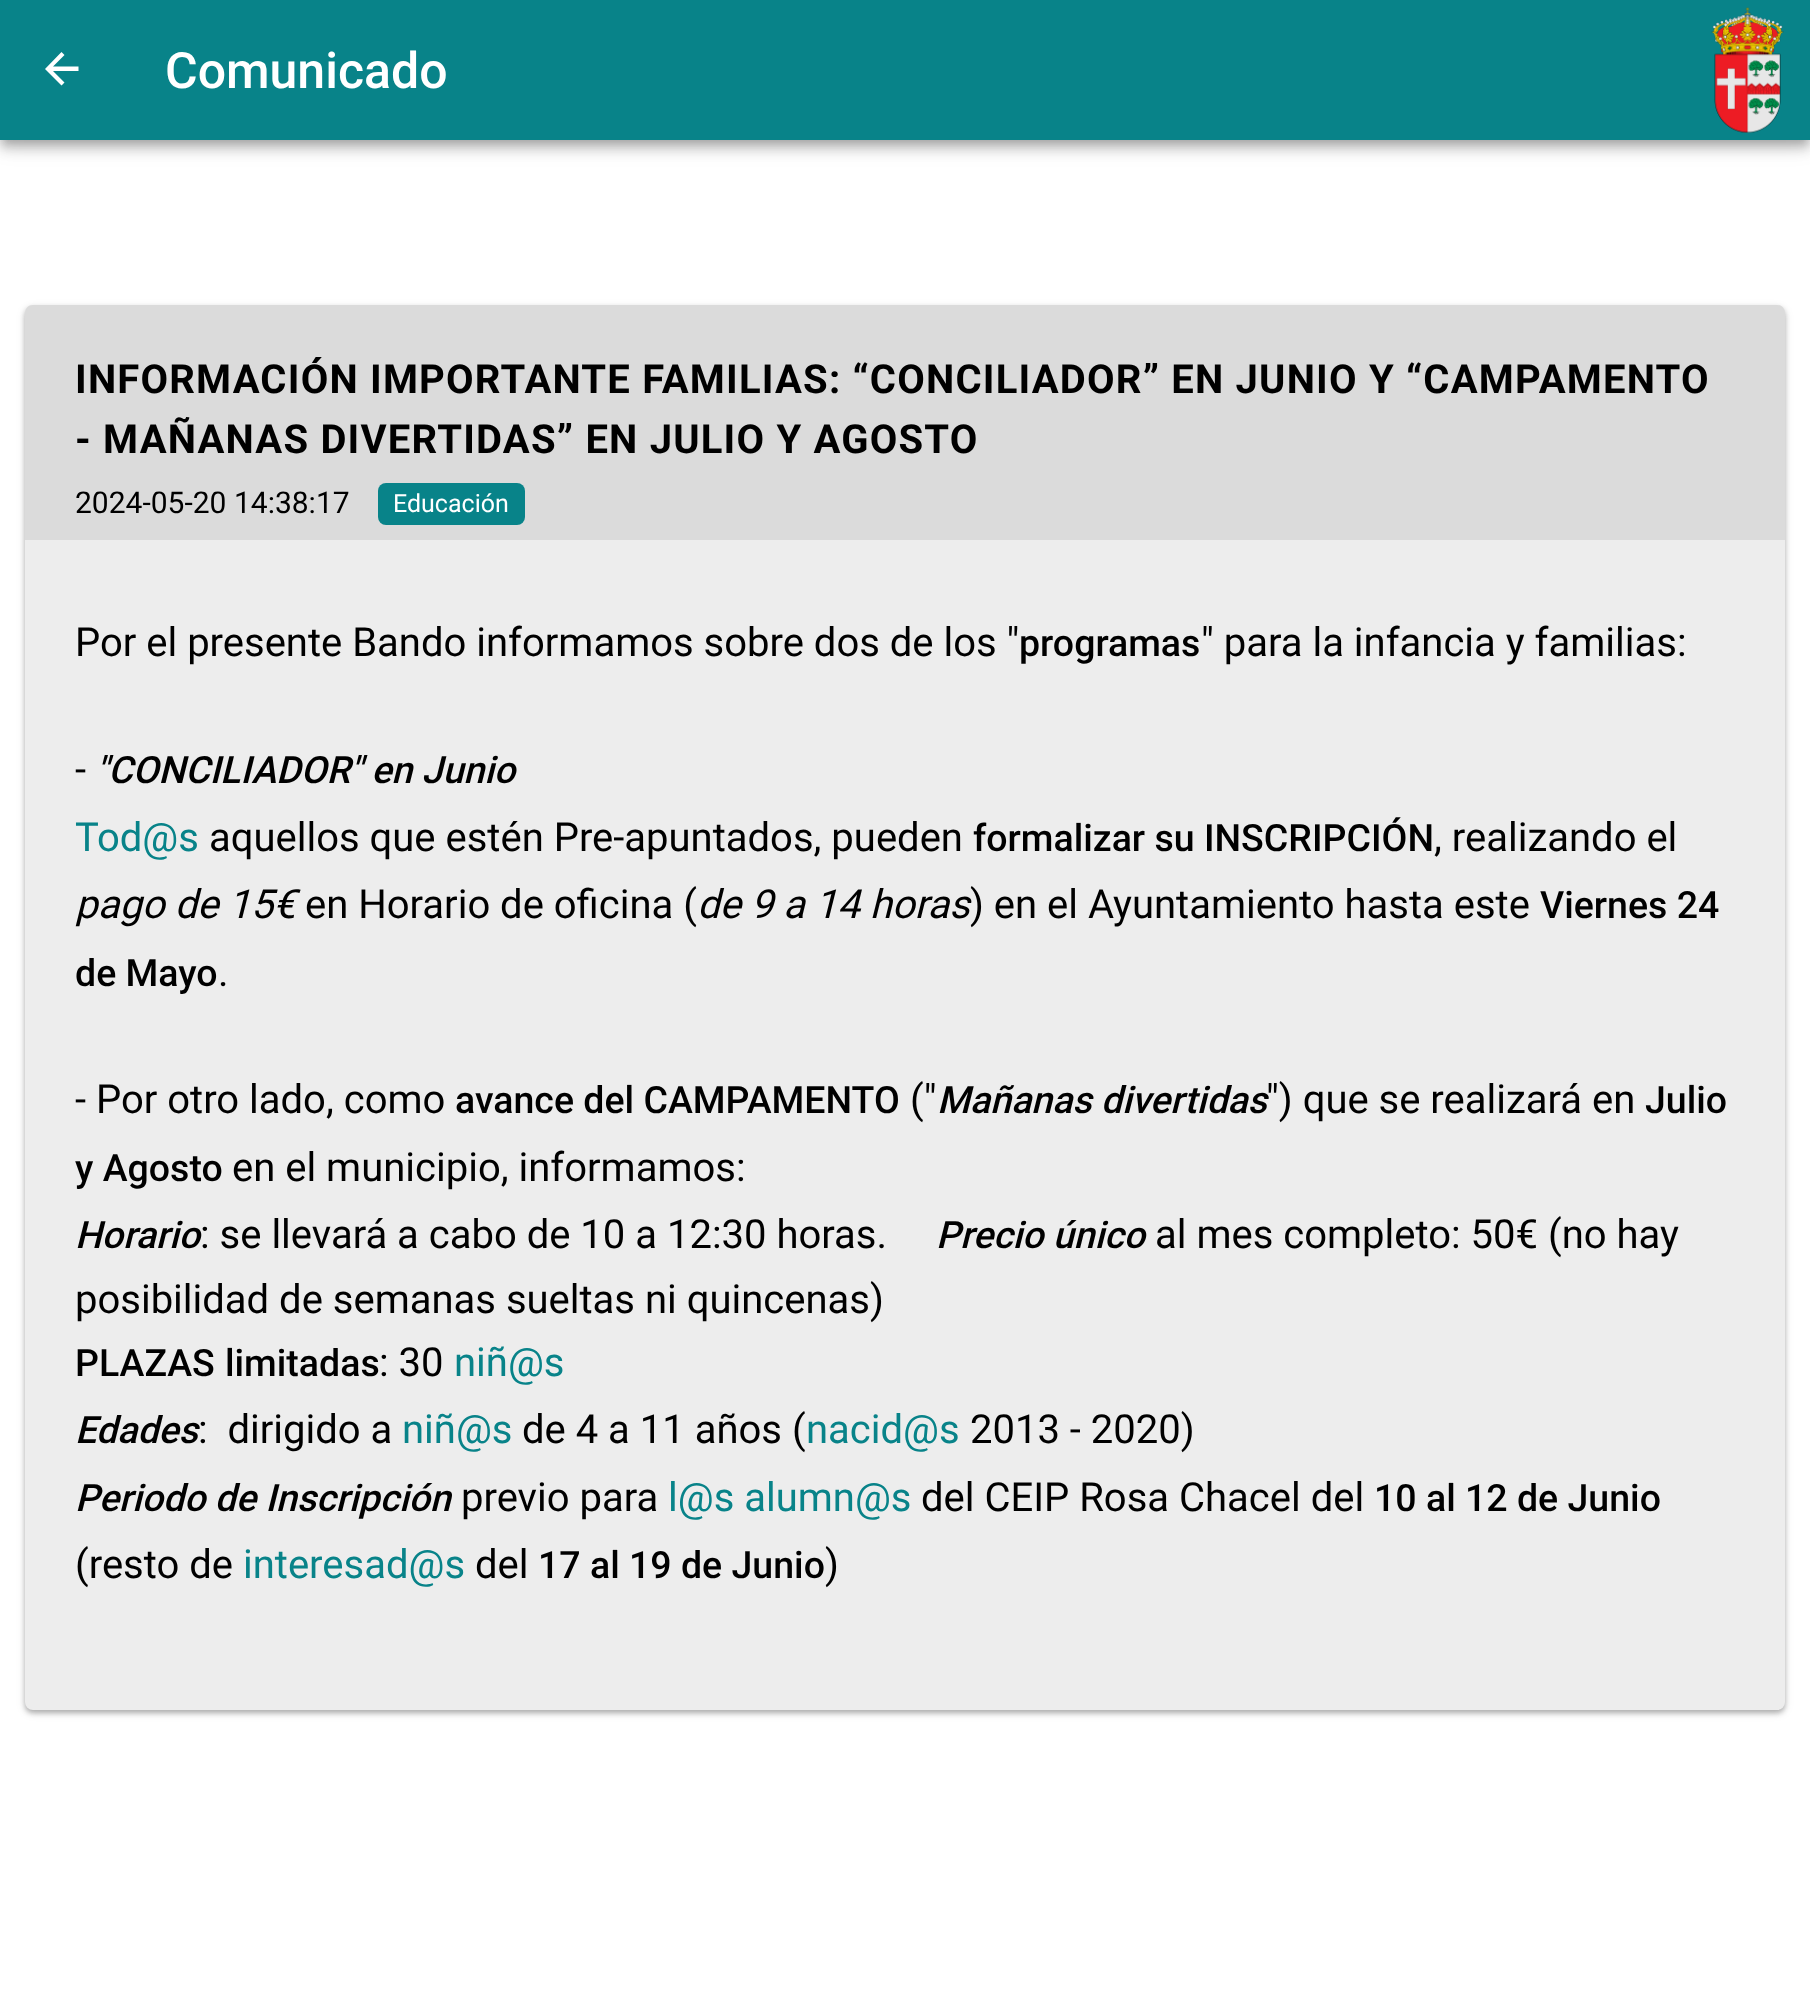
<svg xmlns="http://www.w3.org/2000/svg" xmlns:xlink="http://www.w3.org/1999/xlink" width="1810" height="1998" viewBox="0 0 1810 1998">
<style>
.cls-1{font:500 50px Roboto;fill:#ffffff}
.cls-2{font:bold 40px Roboto;letter-spacing:1.2px;fill:#000000}
.cls-3{font:30px Roboto;fill:#000000}
.cls-4{font:25px Roboto;fill:#ffffff}
.cls-5{font:40px Roboto;fill:#000000}
.cls-6{font:500 37.5px Roboto;fill:#000000}
.cls-7{font:italic 500 37.5px Roboto;fill:#000000}
.cls-8{font:40px Roboto;fill:#088389}
.cls-9{font:italic 40px Roboto;fill:#000000}
</style>
<rect width="100%" height="100%" fill="#ffffff"/>
<rect fill="#000000" fill-opacity="0.12" filter="blur(12.5px)" x="0" y="3" width="1810" height="140"/>
<rect fill="#000000" fill-opacity="0.14" filter="blur(6px)" x="0" y="10" width="1810" height="140"/>
<rect fill="#000000" fill-opacity="0.2" filter="blur(5px)" x="3" y="8" width="1805" height="135"/>
<rect fill="#088389" x="0" y="0" width="1810" height="140"/>
<path fill="#ffffff" d="M78.5 66.5V71H53L64.5 82.5L61.5 85.5L45 69L61.5 52L64.5 55L53 66.5Z"/>
<image xlink:href="image0.png" x="1711" y="7" width="73" height="126"/>
<rect fill="#000000" fill-opacity="0.24" filter="blur(2.5px)" x="25" y="308" width="1760" height="1405" rx="8"/>
<rect fill="#000000" fill-opacity="0.12" filter="blur(4px)" x="25" y="308" width="1760" height="1405" rx="8"/>
<rect fill="#ededed" x="25" y="305" width="1760" height="1405" rx="8"/>
<path fill="#dbdbdb" d="M33 305H1777C1781.5 305 1785 308.5 1785 313V540H25V313C25 308.5 28.5 305 33 305Z"/>
<rect fill="#088389" x="378" y="483" width="147" height="42" rx="8"/>
<text class="cls-1" x="165" y="88">Comunicado</text>
<text class="cls-2"><tspan x="75" y="393">INFORMACIÓN IMPORTANTE FAMILIAS: “CONCILIADOR” EN JUNIO Y “CAMPAMENTO</tspan><tspan x="75" y="453">- MAÑANAS DIVERTIDAS” EN JULIO Y AGOSTO</tspan></text>
<text class="cls-3" x="75" y="513">2024-05-20 14:38:17</text>
<text class="cls-4" x="393" y="512">Educación</text>
<text class="cls-5" x="75" y="656">Por el presente Bando informamos sobre dos de los "</text>
<text class="cls-6" x="1019" y="656">programas</text>
<text class="cls-5" x="1201" y="656">" para la infancia y familias:</text>
<text class="cls-5" x="75" y="783">-</text>
<text class="cls-7" x="96" y="783">"CONCILIADOR" en Junio</text>
<text class="cls-8" x="75" y="851">Tod@s</text>
<text class="cls-5" x="209" y="851">aquellos que estén Pre-apuntados, pueden</text>
<text class="cls-6" x="973" y="851">formalizar su INSCRIPCIÓN</text>
<text class="cls-5" x="1434" y="851">, realizando el</text>
<text class="cls-9" x="75" y="918">pago de 15€</text>
<text class="cls-5" x="305" y="918">en Horario de oficina (</text>
<text class="cls-9" x="697" y="918">de 9 a 14 horas</text>
<text class="cls-5" x="970" y="918">) en el Ayuntamiento hasta este</text>
<text class="cls-6" x="1540" y="918">Viernes 24</text>
<text class="cls-6" x="75" y="986">de Mayo</text>
<text class="cls-5" x="218" y="986">.</text>
<text class="cls-5" x="75" y="1113">- Por otro lado, como</text>
<text class="cls-6" x="455" y="1113">avance del CAMPAMENTO</text>
<text class="cls-5" x="910" y="1113">("</text>
<text class="cls-7" x="937" y="1113">Mañanas divertidas</text>
<text class="cls-5" x="1266" y="1113">") que se realizará en</text>
<text class="cls-6" x="1645" y="1113">Julio</text>
<text class="cls-6" x="75" y="1181">y Agosto</text>
<text class="cls-5" x="232" y="1181">en el municipio, informamos:</text>
<text class="cls-7" x="75" y="1248">Horario</text>
<text class="cls-5" x="200" y="1248">: se llevará a cabo de 10 a 12:30 horas.</text>
<text class="cls-7" x="936" y="1248">Precio único</text>
<text class="cls-5" x="1155" y="1248">al mes completo: 50€ (no hay</text>
<text class="cls-5" x="75" y="1313">posibilidad de semanas sueltas ni quincenas)</text>
<text class="cls-6" x="75" y="1376">PLAZAS</text>
<text class="cls-6" x="225" y="1376">limitadas</text>
<text class="cls-5" x="379" y="1376">: 30</text>
<text class="cls-8" x="454" y="1376">niñ@s</text>
<text class="cls-7" x="75" y="1443">Edades</text>
<text class="cls-5" xml:space="preserve" x="198" y="1443">:  dirigido a</text>
<text class="cls-8" x="402" y="1443">niñ@s</text>
<text class="cls-5" x="522" y="1443">de 4 a 11 años (</text>
<text class="cls-8" x="806" y="1443">nacid@s</text>
<text class="cls-5" x="970" y="1443">2013 - 2020)</text>
<text class="cls-7" x="75" y="1511">Periodo de Inscripción</text>
<text class="cls-5" x="461" y="1511">previo para</text>
<text class="cls-8" x="668" y="1511">l@s alumn@s</text>
<text class="cls-5" x="921" y="1511">del CEIP Rosa Chacel del</text>
<text class="cls-6" x="1374" y="1511">10 al 12 de Junio</text>
<text class="cls-5" x="75" y="1578">(resto de</text>
<text class="cls-8" x="243" y="1578">interesad@s</text>
<text class="cls-5" x="475" y="1578">del</text>
<text class="cls-6" x="538" y="1578">17 al 19 de Junio</text>
<text class="cls-5" x="825" y="1578">)</text>
</svg>
